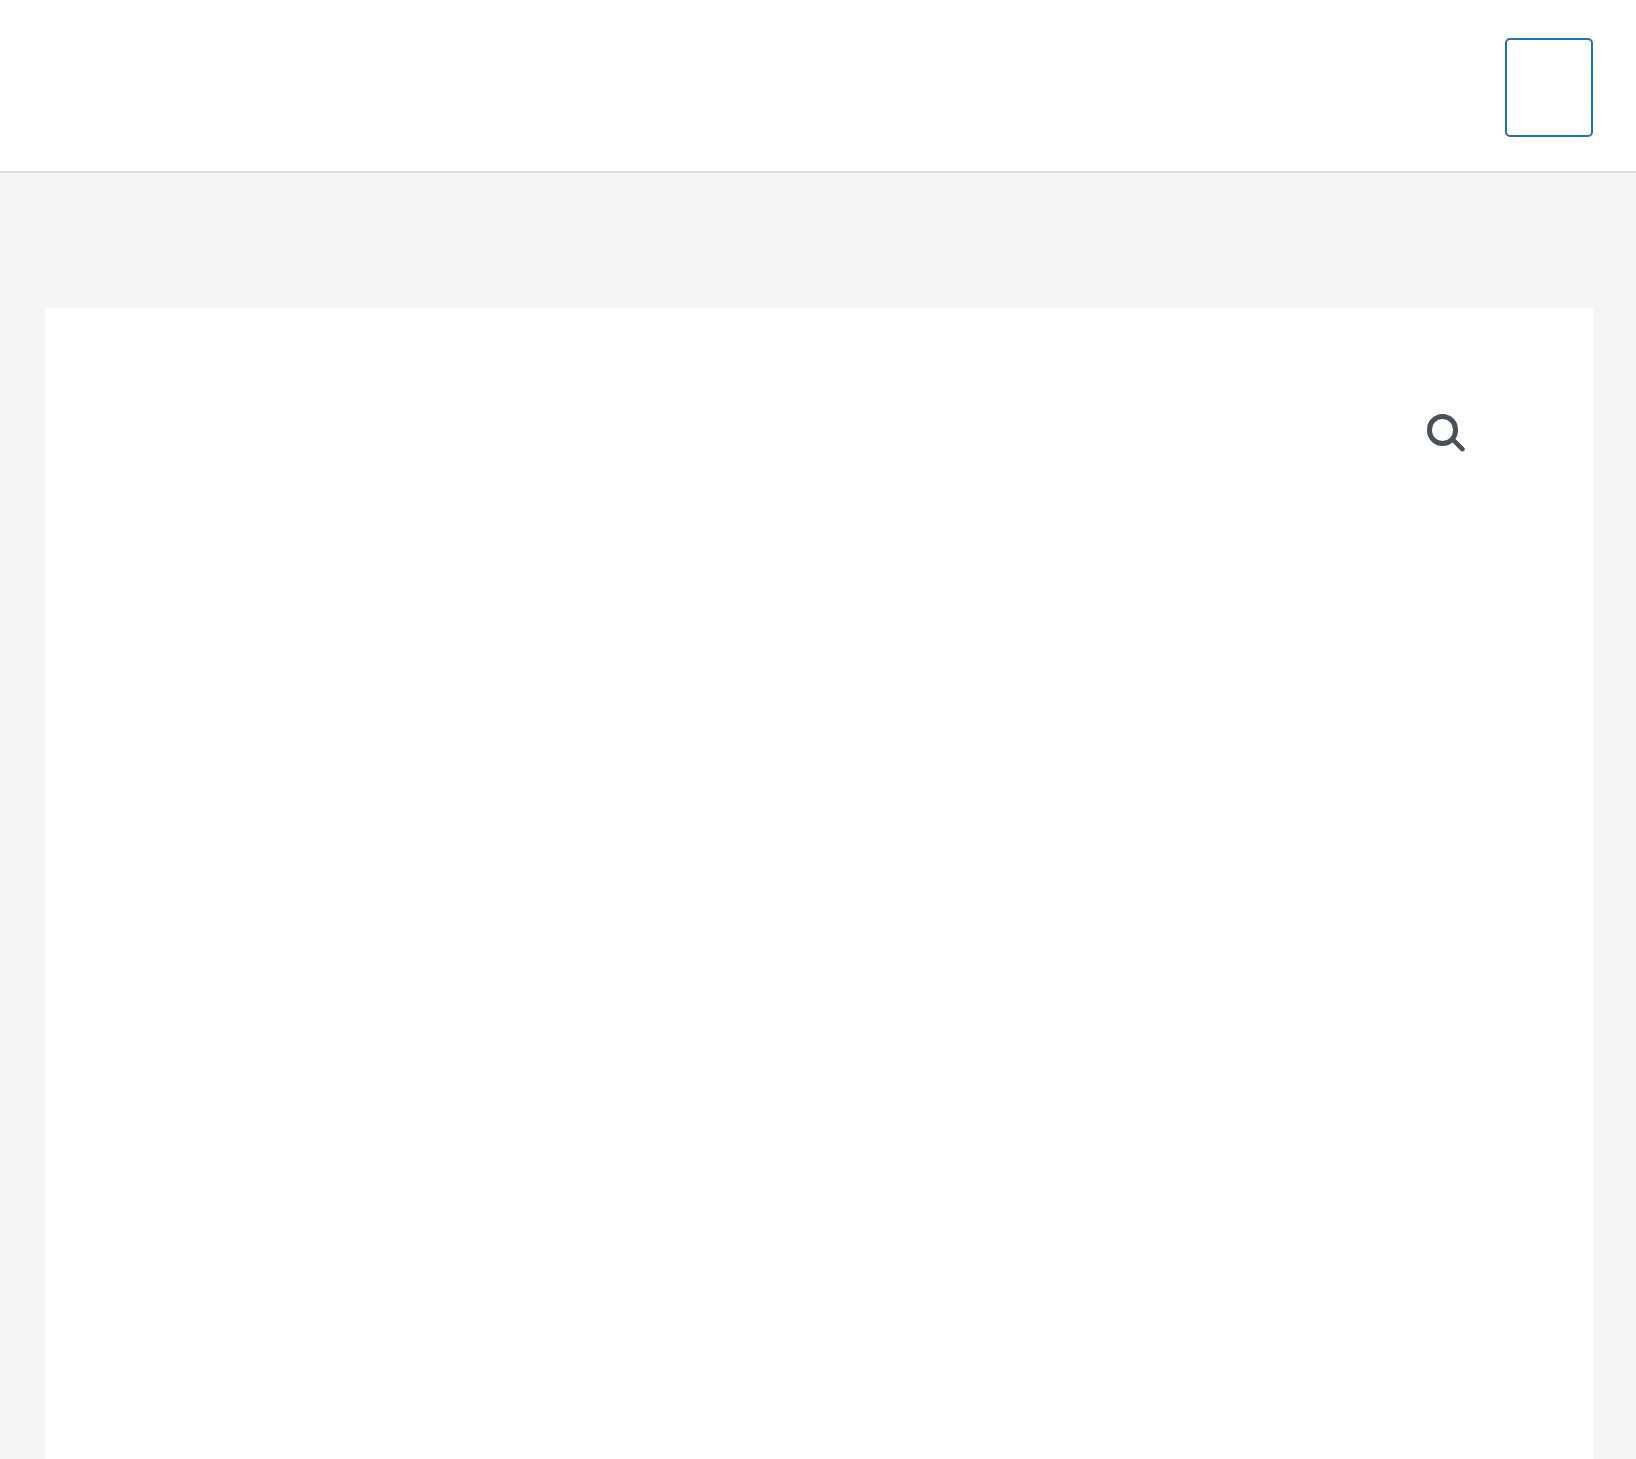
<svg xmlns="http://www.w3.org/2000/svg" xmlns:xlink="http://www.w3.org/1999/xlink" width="1636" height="1459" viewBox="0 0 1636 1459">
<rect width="100%" height="100%" fill="#f5f5f5"/>
<rect fill="#ffffff" x="0" y="0" width="1636" height="171"/>
<rect fill="#dddddd" x="0" y="171" width="1636" height="2"/>
<rect fill="none" stroke="#1e73be" stroke-width="2" x="1506" y="39" width="86" height="97" rx="4"/>
<rect fill="#ffffff" x="45" y="308" width="1548" height="1151"/>
<rect fill="none" stroke="#4b4f58" stroke-width="5" x="1429.5" y="416.5" width="26" height="27" rx="13"/>
<path fill="#4b4f58" d="M1451.5 438C1452.5 437 1453.5 437 1454.5 438L1464 447.5C1465 448.5 1465 450 1464 451C1463.5 451.5 1462 451.5 1461 451L1451.5 441.5C1450.5 440.5 1450.5 439 1451.5 438Z"/>
</svg>
